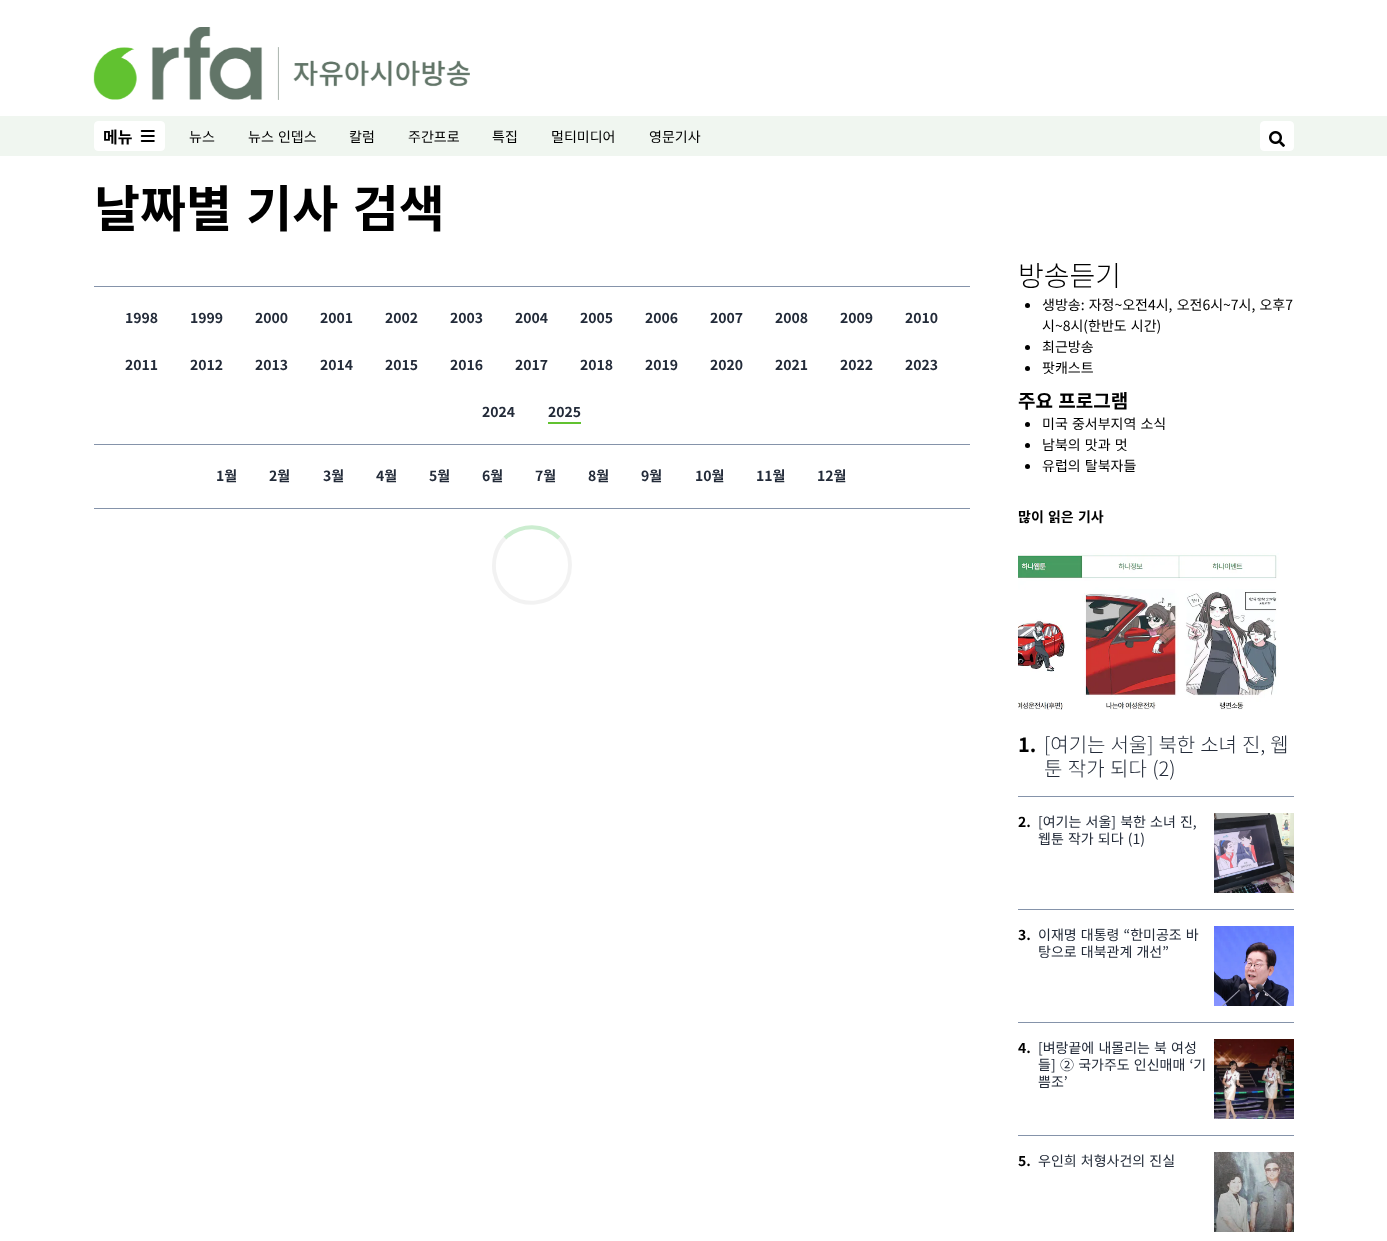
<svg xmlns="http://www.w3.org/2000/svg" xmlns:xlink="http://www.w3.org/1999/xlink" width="1387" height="1241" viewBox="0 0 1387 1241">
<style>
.cls-1{font:bold 16px Noto Sans KR;fill:#000000}
.cls-2{font:14px Noto Sans KR;fill:#000000}
.cls-3{font:bold 50px Noto Sans KR;fill:#000000}
.cls-4{font:bold 14px Noto Sans KR;fill:#232b39}
.cls-5{font:300 28px Noto Sans KR;fill:#000000}
.cls-6{font:bold 19px Noto Sans KR;fill:#000000}
.cls-7{font:bold 14px Noto Sans KR;fill:#000000}
.cls-8{font:bold 20px Noto Sans KR;fill:#000000}
.cls-9{font:300 20px Noto Sans KR;fill:#232b39}
.cls-10{font:14px Noto Sans KR;fill:#232b39}
</style>
<rect width="100%" height="100%" fill="#ffffff"/>
<image xlink:href="image0.png" x="93" y="27" width="377" height="73"/>
<rect fill="#f0f6f0" x="0" y="116" width="1387" height="40"/>
<rect fill="#ffffff" stroke="#ffffff" x="94.5" y="121.5" width="70" height="29" rx="3.5"/>
<image xlink:href="image1.png" x="140" y="130" width="15" height="12"/>
<rect fill="#ffffff" stroke="#ffffff" x="1260.5" y="121.5" width="33" height="29" rx="3.5"/>
<image xlink:href="image2.png" x="1269" y="131" width="16" height="16"/>
<rect fill="#8593aa" x="94" y="286" width="876" height="1"/>
<rect fill="#61c230" x="548" y="422" width="33" height="2"/>
<rect fill="#8593aa" x="94" y="444" width="876" height="1"/>
<rect fill="#8593aa" x="94" y="508" width="876" height="1"/>
<path fill="none" stroke="#ccedd0" stroke-width="4" d="M505 538C520 523.5 544 523.5 559 538"/>
<path fill="none" stroke="#000000" stroke-opacity="0.05" stroke-width="4" d="M559 538C566 545 570 555 570 565C570 610.5 503.5 617 494.5 572.5C492.5 560 496 547 505 538"/>
<circle fill="#000000" cx="1027.5" cy="305.5" r="2.5"/>
<circle fill="#000000" cx="1027.5" cy="347.5" r="2.5"/>
<circle fill="#000000" cx="1027.5" cy="368.5" r="2.5"/>
<circle fill="#000000" cx="1027.5" cy="424.5" r="2.5"/>
<circle fill="#000000" cx="1027.5" cy="445.5" r="2.5"/>
<circle fill="#000000" cx="1027.5" cy="466.5" r="2.5"/>
<image xlink:href="image3.png" x="1018" y="553" width="261" height="157"/>
<rect fill="#8593aa" x="1018" y="796" width="276" height="1"/>
<image xlink:href="image4.png" x="1214" y="813" width="80" height="80"/>
<rect fill="#8593aa" x="1018" y="909" width="276" height="1"/>
<image xlink:href="image5.png" x="1214" y="926" width="80" height="80"/>
<rect fill="#8593aa" x="1018" y="1022" width="276" height="1"/>
<image xlink:href="image6.png" x="1214" y="1039" width="80" height="80"/>
<rect fill="#8593aa" x="1018" y="1135" width="276" height="1"/>
<image xlink:href="image7.png" x="1214" y="1152" width="80" height="80"/>
<text class="cls-1" x="103" y="143">메뉴</text>
<text class="cls-2" x="189" y="142">뉴스</text>
<text class="cls-2" x="248" y="142" word-spacing="1">뉴스 인뎁스</text>
<text class="cls-2" x="349" y="142">칼럼</text>
<text class="cls-2" x="408" y="142">주간프로</text>
<text class="cls-2" x="492" y="142">특집</text>
<text class="cls-2" x="551" y="142">멀티미디어</text>
<text class="cls-2" x="649" y="142">영문기사</text>
<text class="cls-3" x="94" y="227" word-spacing="3">날짜별 기사 검색</text>
<text class="cls-4" x="125" y="323">1998</text>
<text class="cls-4" x="190" y="323">1999</text>
<text class="cls-4" x="255" y="323">2000</text>
<text class="cls-4" x="320" y="323">2001</text>
<text class="cls-4" x="385" y="323">2002</text>
<text class="cls-4" x="450" y="323">2003</text>
<text class="cls-4" x="515" y="323">2004</text>
<text class="cls-4" x="580" y="323">2005</text>
<text class="cls-4" x="645" y="323">2006</text>
<text class="cls-4" x="710" y="323">2007</text>
<text class="cls-4" x="775" y="323">2008</text>
<text class="cls-4" x="840" y="323">2009</text>
<text class="cls-4" x="905" y="323">2010</text>
<text class="cls-4" x="125" y="370">2011</text>
<text class="cls-4" x="190" y="370">2012</text>
<text class="cls-4" x="255" y="370">2013</text>
<text class="cls-4" x="320" y="370">2014</text>
<text class="cls-4" x="385" y="370">2015</text>
<text class="cls-4" x="450" y="370">2016</text>
<text class="cls-4" x="515" y="370">2017</text>
<text class="cls-4" x="580" y="370">2018</text>
<text class="cls-4" x="645" y="370">2019</text>
<text class="cls-4" x="710" y="370">2020</text>
<text class="cls-4" x="775" y="370">2021</text>
<text class="cls-4" x="840" y="370">2022</text>
<text class="cls-4" x="905" y="370">2023</text>
<text class="cls-4" x="482" y="417">2024</text>
<text class="cls-4" x="548" y="417">2025</text>
<text class="cls-4" x="216" y="481">1월</text>
<text class="cls-4" x="269" y="481">2월</text>
<text class="cls-4" x="323" y="481">3월</text>
<text class="cls-4" x="376" y="481">4월</text>
<text class="cls-4" x="429" y="481">5월</text>
<text class="cls-4" x="482" y="481">6월</text>
<text class="cls-4" x="535" y="481">7월</text>
<text class="cls-4" x="588" y="481">8월</text>
<text class="cls-4" x="641" y="481">9월</text>
<text class="cls-4" x="695" y="481">10월</text>
<text class="cls-4" x="756" y="481">11월</text>
<text class="cls-4" x="817" y="481">12월</text>
<text class="cls-5" x="1018" y="286">방송듣기</text>
<text class="cls-2"><tspan x="1042" y="310" word-spacing="1">생방송: 자정~오전4시, 오전6시~7시, 오후7</tspan><tspan x="1042" y="331" word-spacing="1">시~8시(한반도 시간)</tspan><tspan x="1042" y="352">최근방송</tspan><tspan x="1042" y="373">팟캐스트</tspan></text>
<text class="cls-6" x="1018" y="408" word-spacing="1">주요 프로그램</text>
<text class="cls-2"><tspan x="1042" y="429" word-spacing="1">미국 중서부지역 소식</tspan><tspan x="1042" y="450" word-spacing="1">남북의 맛과 멋</tspan><tspan x="1042" y="471" word-spacing="1">유럽의 탈북자들</tspan></text>
<text class="cls-7" x="1018" y="522" word-spacing="1">많이 읽은 기사</text>
<text class="cls-8" x="1018" y="752">1.</text>
<text class="cls-9"><tspan x="1044" y="752" word-spacing="0.5">[여기는 서울] 북한 소녀 진, 웹</tspan><tspan x="1044" y="776" word-spacing="1">툰 작가 되다 (2)</tspan></text>
<text class="cls-7" x="1018" y="827">2.</text>
<text class="cls-10"><tspan x="1038" y="827" word-spacing="1">[여기는 서울] 북한 소녀 진,</tspan><tspan x="1038" y="844" word-spacing="1">웹툰 작가 되다 (1)</tspan></text>
<text class="cls-7" x="1018" y="940">3.</text>
<text class="cls-10"><tspan x="1038" y="940" word-spacing="1">이재명 대통령 “한미공조 바</tspan><tspan x="1038" y="957" word-spacing="1">탕으로 대북관계 개선”</tspan></text>
<text class="cls-7" x="1018" y="1053">4.</text>
<text class="cls-10"><tspan x="1038" y="1053" word-spacing="1">[벼랑끝에 내몰리는 북 여성</tspan><tspan x="1038" y="1070">들]</tspan></text>
<text class="cls-10" x="1060" y="1070" word-spacing="1">② 국가주도 인신매매 ‘기</text>
<text class="cls-10" x="1038" y="1087">쁨조’</text>
<text class="cls-7" x="1018" y="1166">5.</text>
<text class="cls-10" x="1038" y="1166" word-spacing="1">우인희 처형사건의 진실</text>
</svg>
